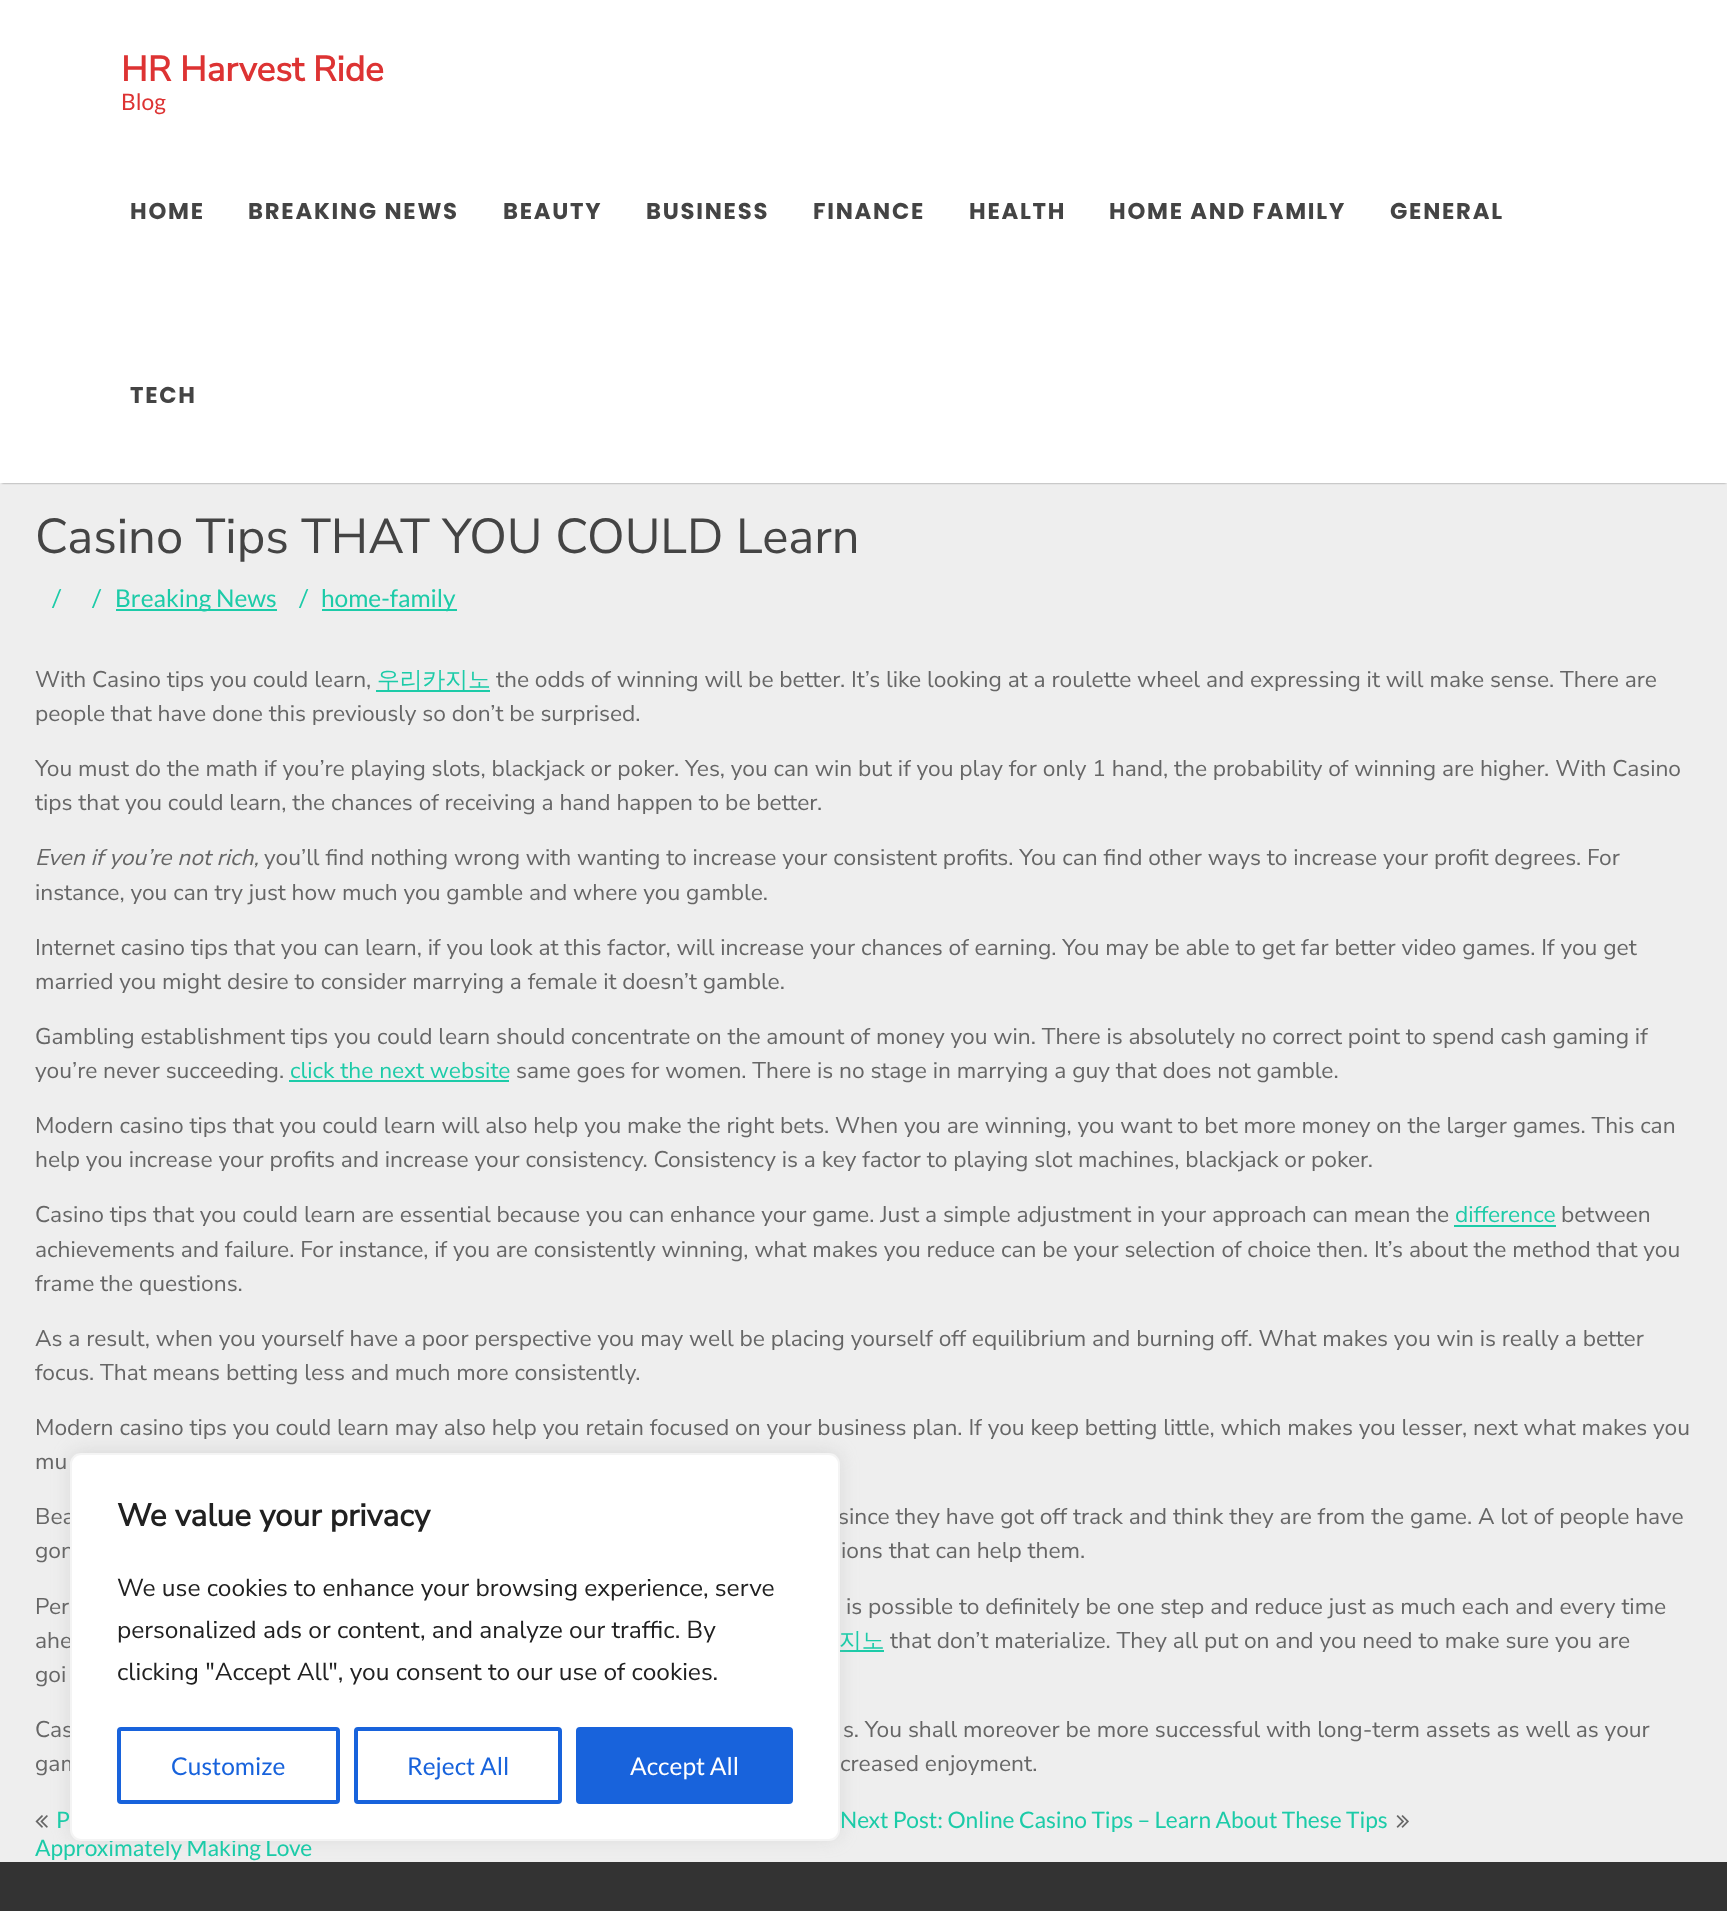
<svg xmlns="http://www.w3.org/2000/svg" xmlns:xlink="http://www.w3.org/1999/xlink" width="1727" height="1911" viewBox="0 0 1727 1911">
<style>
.cls-1{font:bold 35px Nunito Sans;fill:#dd3333}
.cls-2{font:22.75px Lato;fill:#dd3333}
.cls-3{font:bold 22.75px Poppins;letter-spacing:1.75px;fill:#444444}
.cls-4{font:200 49px Nunito Sans;fill:#444444}
.cls-5{font:24.5px Lato;fill:#1ccba8}
.cls-6{font:200 22.75px Nunito Sans;fill:#666666}
.cls-7{font:500 22.75px WenQuanYi Zen Hei;fill:#1ccba8}
.cls-8{font:italic 200 22.75px Nunito Sans;fill:#666666}
.cls-9{font:200 22.75px Nunito Sans;fill:#1ccba8}
.cls-10{font:22.75px Lato;fill:#1ccba8}
.cls-11{font:bold 31.5px Nunito Sans;fill:#212121}
.cls-12{font:200 24.5px Nunito Sans;fill:#212121}
.cls-13{font:24.5px Lato;fill:#1863dc}
.cls-14{font:24.5px Lato;fill:#ffffff}
</style>
<rect width="100%" height="100%" fill="#eeeeee"/>
<rect fill="#808080" filter="blur(1px)" x="2" y="4" width="1724" height="479"/>
<rect fill="#ffffff" x="0" y="0" width="1727" height="483"/>
<rect fill="#1ccba8" x="116" y="609" width="161" height="2"/>
<rect fill="#1ccba8" x="322" y="609" width="135" height="2"/>
<rect fill="#1ccba8" x="376" y="690" width="114" height="2"/>
<rect fill="#1ccba8" x="289" y="1080" width="220" height="2"/>
<rect fill="#1ccba8" x="1454" y="1225" width="102" height="2"/>
<rect fill="#1ccba8" x="840" y="1650" width="44" height="2"/>
<image xlink:href="image0.png" x="35" y="1815" width="13" height="13"/>
<image xlink:href="image1.png" x="1396" y="1815" width="13" height="13"/>
<rect fill="#333333" x="0" y="1862" width="1727" height="49"/>
<rect fill="#acabab" fill-opacity="0.3" filter="blur(9px)" x="70" y="1451" width="770" height="388" rx="11"/>
<text class="cls-1" x="121" y="81">HR Harvest Ride</text>
<text class="cls-2" x="121" y="110">Blog</text>
<text class="cls-3" x="130" y="219">HOME</text>
<text class="cls-3" x="248" y="219">BREAKING NEWS</text>
<text class="cls-3" x="503" y="219">BEAUTY</text>
<text class="cls-3" x="646" y="219">BUSINESS</text>
<text class="cls-3" x="813" y="219">FINANCE</text>
<text class="cls-3" x="969" y="219">HEALTH</text>
<text class="cls-3" x="1109" y="219">HOME AND FAMILY</text>
<text class="cls-3" x="1390" y="219">GENERAL</text>
<text class="cls-3" x="130" y="403">TECH</text>
<text class="cls-4" x="35" y="553">Casino Tips THAT YOU COULD Learn</text>
<text class="cls-5" x="52" y="607">/</text>
<text class="cls-5" x="92" y="607">/</text>
<text class="cls-5" x="115" y="607">Breaking News</text>
<text class="cls-5" x="299" y="607">/</text>
<text class="cls-5" x="321" y="607">home-family</text>
<text class="cls-6" x="35" y="687">With Casino tips you could learn,</text>
<text class="cls-7" x="377" y="687">우리카지노</text>
<text class="cls-6" x="496" y="687">the odds of winning will be better. It’s like looking at a roulette wheel and expressing it will make sense. There are</text>
<text class="cls-6" x="35" y="721">people that have done this previously so don’t be surprised.</text>
<text class="cls-6"><tspan x="35" y="776">You must do the math if you’re playing slots, blackjack or poker. Yes, you can win but if you play for only 1 hand, the probability of winning are higher. With Casino</tspan><tspan x="35" y="810">tips that you could learn, the chances of receiving a hand happen to be better.</tspan></text>
<text class="cls-8" x="35" y="865">Even if you’re not rich,</text>
<text class="cls-6" x="264" y="865">you’ll find nothing wrong with wanting to increase your consistent profits. You can find other ways to increase your profit degrees. For</text>
<text class="cls-6" x="35" y="900">instance, you can try just how much you gamble and where you gamble.</text>
<text class="cls-6"><tspan x="35" y="955">Internet casino tips that you can learn, if you look at this factor, will increase your chances of earning. You may be able to get far better video games. If you get</tspan><tspan x="35" y="989">married you might desire to consider marrying a female it doesn’t gamble.</tspan></text>
<text class="cls-6"><tspan x="35" y="1044">Gambling establishment tips you could learn should concentrate on the amount of money you win. There is absolutely no correct point to spend cash gaming if</tspan><tspan x="35" y="1078">you’re never succeeding.</tspan></text>
<text class="cls-9" x="290" y="1078">click the next website</text>
<text class="cls-6" x="516" y="1078">same goes for women. There is no stage in marrying a guy that does not gamble.</text>
<text class="cls-6"><tspan x="35" y="1133">Modern casino tips that you could learn will also help you make the right bets. When you are winning, you want to bet more money on the larger games. This can</tspan><tspan x="35" y="1167">help you increase your profits and increase your consistency. Consistency is a key factor to playing slot machines, blackjack or poker.</tspan></text>
<text class="cls-6" x="35" y="1222">Casino tips that you could learn are essential because you can enhance your game. Just a simple adjustment in your approach can mean the</text>
<text class="cls-9" x="1455" y="1222">difference</text>
<text class="cls-6" x="1561" y="1222">between</text>
<text class="cls-6"><tspan x="35" y="1257">achievements and failure. For instance, if you are consistently winning, what makes you reduce can be your selection of choice then. It’s about the method that you</tspan><tspan x="35" y="1291">frame the questions.</tspan></text>
<text class="cls-6"><tspan x="35" y="1346">As a result, when you yourself have a poor perspective you may well be placing yourself off equilibrium and burning off. What makes you win is really a better</tspan><tspan x="35" y="1380">focus. That means betting less and much more consistently.</tspan></text>
<text class="cls-6"><tspan x="35" y="1435">Modern casino tips you could learn may also help you retain focused on your business plan. If you keep betting little, which makes you lesser, next what makes you</tspan><tspan x="35" y="1469">mu</tspan></text>
<text class="cls-6" x="35" y="1524">Bea</text>
<text class="cls-6" x="838" y="1524">since they have got off track and think they are from the game. A lot of people have</text>
<text class="cls-6" x="35" y="1558">gon</text>
<text class="cls-6" x="841" y="1558">ions that can help them.</text>
<text class="cls-6" x="35" y="1614">Per</text>
<text class="cls-6" x="846" y="1614">is possible to definitely be one step and reduce just as much each and every time</text>
<text class="cls-6" x="35" y="1648">ahe</text>
<text class="cls-7" x="839" y="1648">지노</text>
<text class="cls-6" x="890" y="1648">that don’t materialize. They all put on and you need to make sure you are</text>
<text class="cls-6" x="35" y="1682">goi</text>
<text class="cls-6" x="35" y="1737">Cas</text>
<text class="cls-6" x="843" y="1737">s. You shall moreover be more successful with long-term assets as well as your</text>
<text class="cls-6" x="35" y="1771">gam</text>
<text class="cls-6" x="840" y="1771">creased enjoyment.</text>
<text class="cls-10" x="56" y="1828">P</text>
<text class="cls-10" x="35" y="1856">Approximately Making Love</text>
<text class="cls-10" x="840" y="1828">Next Post: Online Casino Tips – Learn About These Tips</text>
<rect fill="#ffffff" stroke="#f4f4f4" stroke-width="2" x="71" y="1454" width="768" height="386" rx="10"/>
<text class="cls-11" x="117" y="1526">We value your privacy</text>
<text class="cls-12"><tspan x="117" y="1596">We use cookies to enhance your browsing experience, serve</tspan><tspan x="117" y="1638">personalized ads or content, and analyze our traffic. By</tspan><tspan x="117" y="1680">clicking "Accept All", you consent to our use of cookies.</tspan></text>
<rect fill="none" stroke="#1863dc" stroke-width="4" x="119" y="1729" width="219" height="73" rx="2"/>
<text class="cls-13" x="171" y="1775">Customize</text>
<rect fill="none" stroke="#1863dc" stroke-width="4" x="356" y="1729" width="204" height="73" rx="2"/>
<text class="cls-13" x="407" y="1775">Reject All</text>
<rect fill="#1863dc" stroke="#1863dc" stroke-width="4" x="578" y="1729" width="213" height="73" rx="2"/>
<text class="cls-14" x="630" y="1775">Accept All</text>
</svg>
